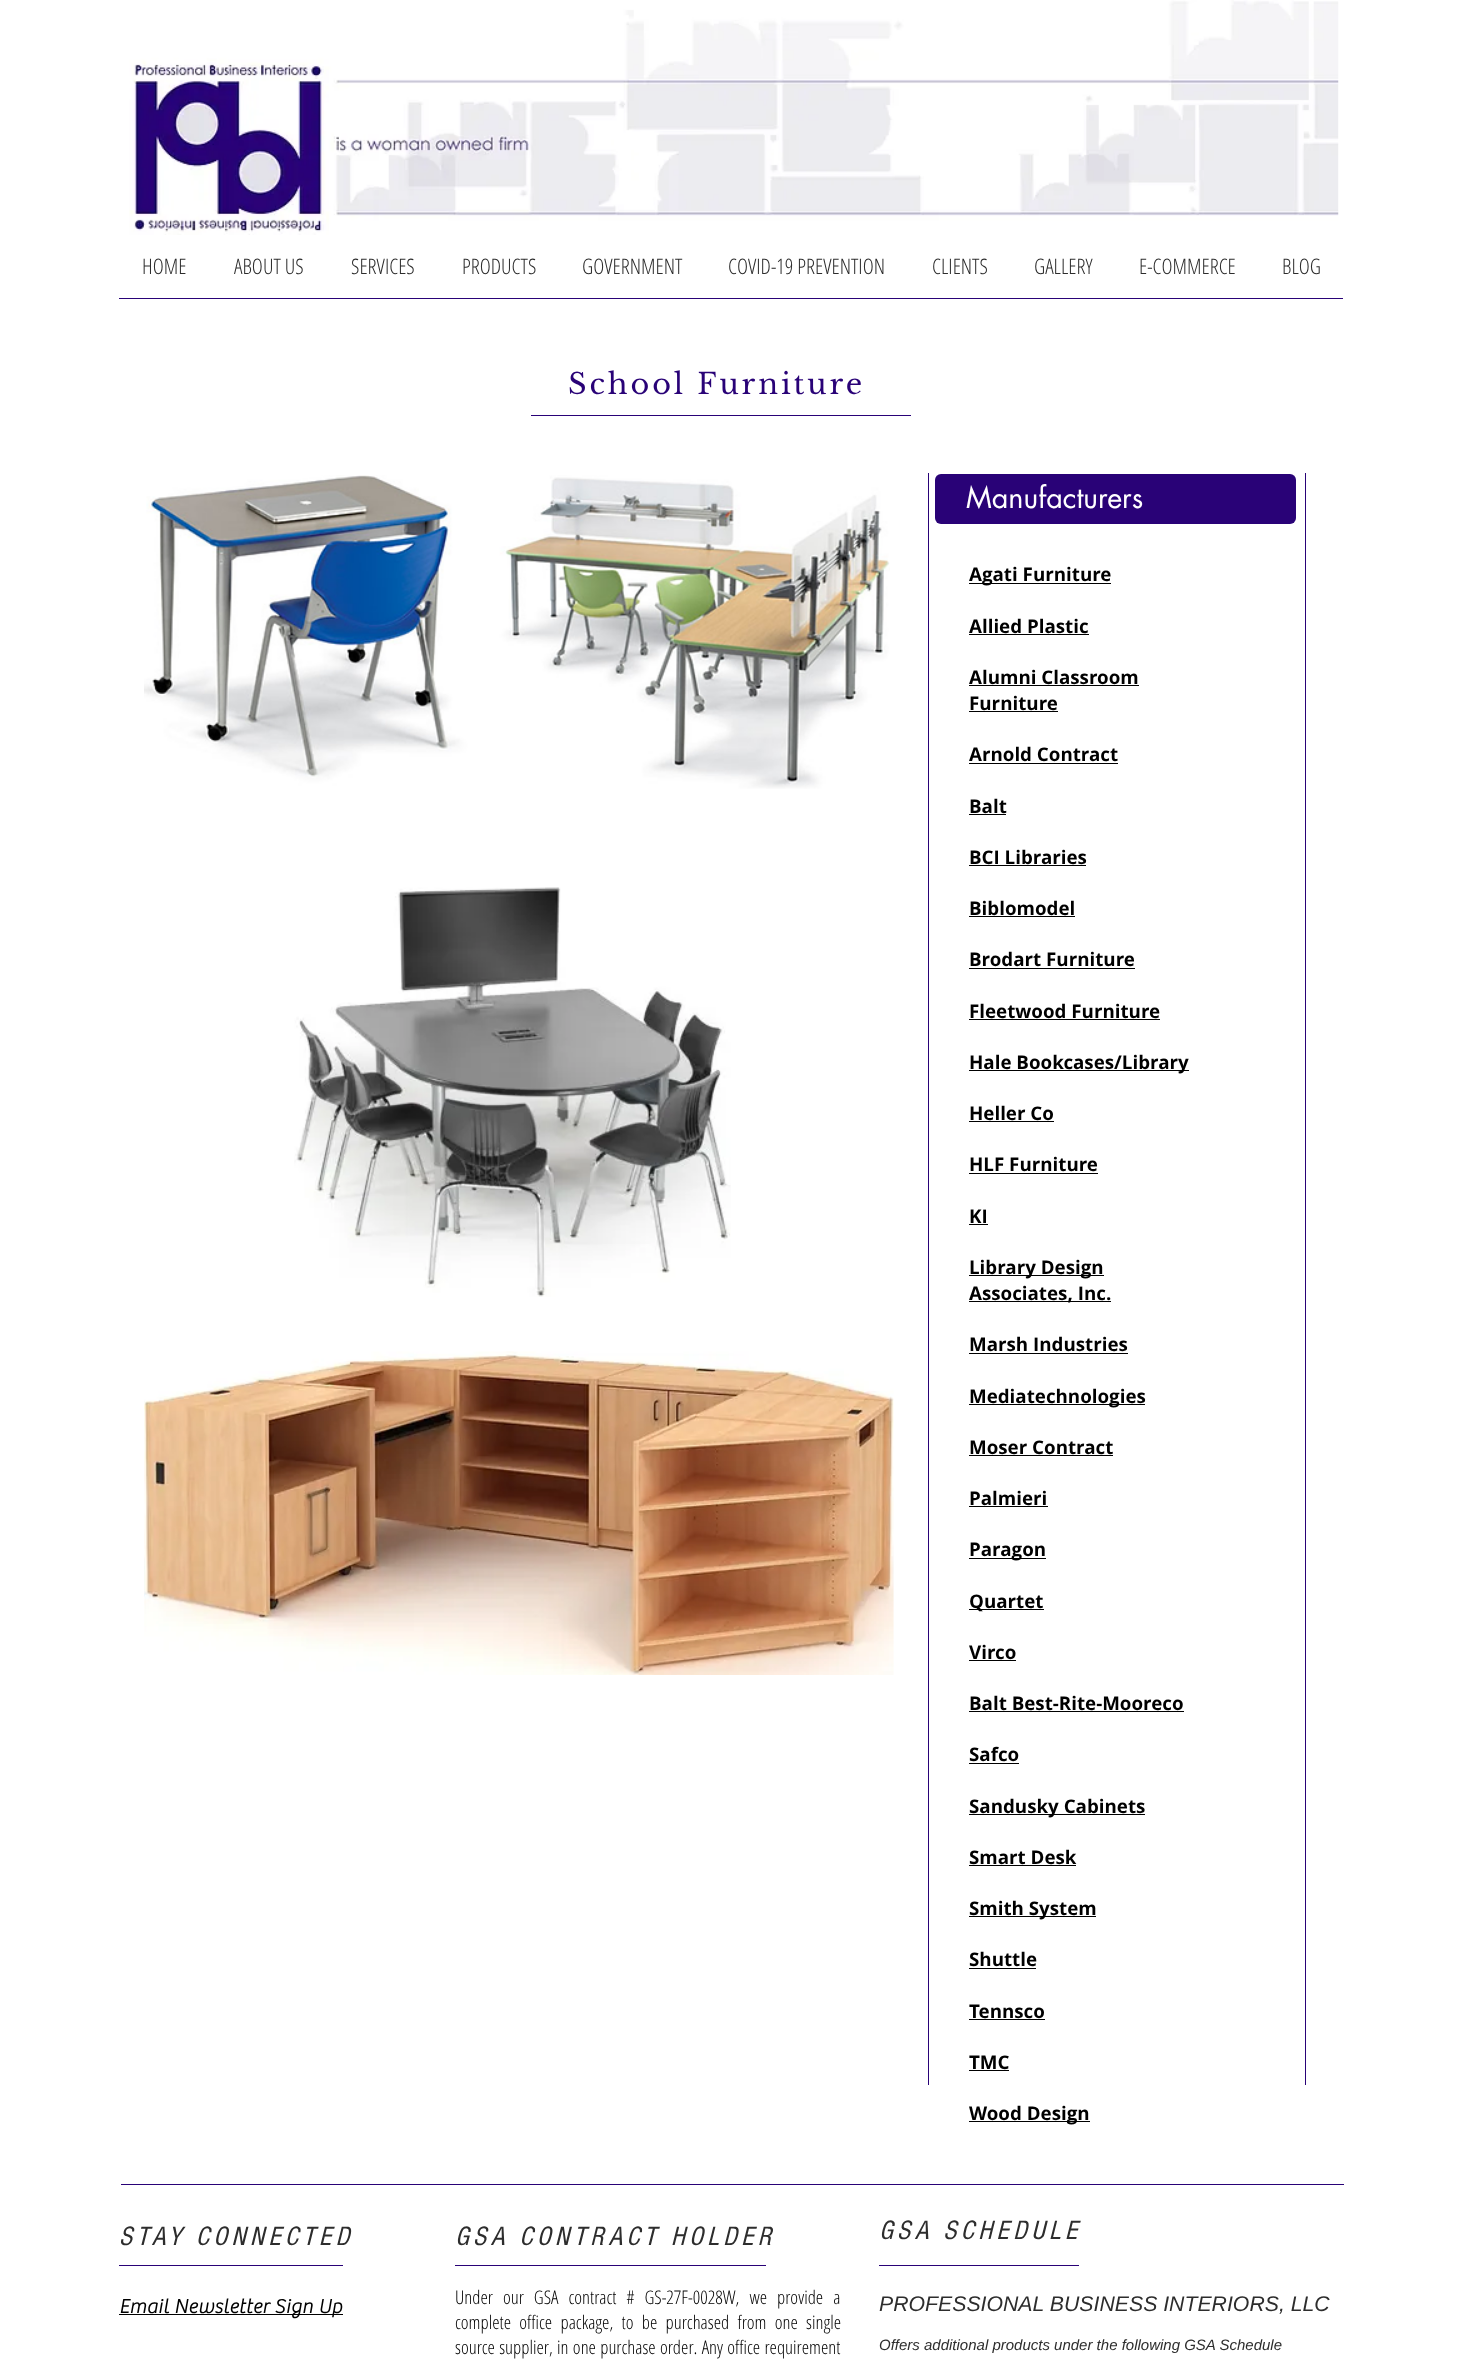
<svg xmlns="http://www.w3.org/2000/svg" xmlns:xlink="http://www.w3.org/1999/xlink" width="1462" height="2374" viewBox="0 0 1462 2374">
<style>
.cls-1{font:300 21.25px Open Sans Condensed;fill:#2d2d2d}
.cls-2{font:28.75px Libre Baskerville;letter-spacing:2.9px;fill:#290277}
.cls-3{font:28.75px futura;fill:#ffffff}
.cls-4{font:bold 18.75px Open Sans;fill:#000000}
.cls-5{font:italic 27.5px 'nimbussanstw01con';letter-spacing:4.1px;fill:#2d2d2d}
.cls-6{font:bold 20px 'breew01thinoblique';letter-spacing:0.6px;fill:#000000}
.cls-7{font:300 18.75px Open Sans Condensed;fill:#000000}
.cls-8{font:italic 21.25px Liberation Sans;fill:#2d2d2d}
.cls-9{font:italic 15px Liberation Sans;fill:#2d2d2d}
</style>
<rect width="100%" height="100%" fill="#ffffff"/>
<image xlink:href="image0.png" x="129" y="0" width="1210" height="235"/>
<rect fill="#290277" x="119" y="298" width="1224" height="1"/>
<rect fill="#290277" x="531" y="415" width="380" height="1"/>
<image xlink:href="image1.png" x="144" y="475" width="746" height="314"/>
<image xlink:href="image2.png" x="294" y="887" width="437" height="410"/>
<image xlink:href="image3.png" x="144" y="1351" width="750" height="324"/>
<rect fill="#290277" x="928" y="473" width="1" height="1612"/>
<rect fill="#290277" x="1305" y="473" width="1" height="1612"/>
<rect fill="#290277" x="935" y="474" width="361" height="50" rx="6"/>
<rect fill="#000000" x="969" y="583" width="142" height="1"/>
<rect fill="#000000" x="969" y="634" width="120" height="1"/>
<rect fill="#000000" x="969" y="685" width="170" height="1"/>
<rect fill="#000000" x="969" y="711" width="89" height="1"/>
<rect fill="#000000" x="969" y="763" width="149" height="1"/>
<rect fill="#000000" x="969" y="814" width="37" height="1"/>
<rect fill="#000000" x="969" y="865" width="117" height="1"/>
<rect fill="#000000" x="969" y="916" width="106" height="1"/>
<rect fill="#000000" x="969" y="968" width="166" height="1"/>
<rect fill="#000000" x="969" y="1019" width="191" height="1"/>
<rect fill="#000000" x="969" y="1070" width="220" height="1"/>
<rect fill="#000000" x="969" y="1121" width="85" height="1"/>
<rect fill="#000000" x="969" y="1173" width="129" height="1"/>
<rect fill="#000000" x="969" y="1224" width="19" height="1"/>
<rect fill="#000000" x="969" y="1275" width="135" height="1"/>
<rect fill="#000000" x="969" y="1301" width="142" height="1"/>
<rect fill="#000000" x="969" y="1353" width="159" height="1"/>
<rect fill="#000000" x="969" y="1404" width="176" height="1"/>
<rect fill="#000000" x="969" y="1455" width="144" height="1"/>
<rect fill="#000000" x="969" y="1506" width="79" height="1"/>
<rect fill="#000000" x="969" y="1558" width="77" height="1"/>
<rect fill="#000000" x="969" y="1609" width="75" height="1"/>
<rect fill="#000000" x="969" y="1660" width="47" height="1"/>
<rect fill="#000000" x="969" y="1711" width="215" height="1"/>
<rect fill="#000000" x="969" y="1763" width="50" height="1"/>
<rect fill="#000000" x="969" y="1814" width="176" height="1"/>
<rect fill="#000000" x="969" y="1865" width="107" height="1"/>
<rect fill="#000000" x="969" y="1916" width="127" height="1"/>
<rect fill="#000000" x="969" y="1968" width="67" height="1"/>
<rect fill="#000000" x="969" y="2019" width="76" height="1"/>
<rect fill="#000000" x="969" y="2070" width="40" height="1"/>
<rect fill="#000000" x="969" y="2121" width="121" height="1"/>
<rect fill="#290277" x="121" y="2184" width="1223" height="1"/>
<rect fill="#290277" x="119" y="2265" width="224" height="1"/>
<rect fill="#290277" x="455" y="2265" width="311" height="1"/>
<rect fill="#290277" x="879" y="2265" width="200" height="1"/>
<rect fill="#000000" x="119" y="2314" width="224" height="1"/>
<text class="cls-1" x="142" y="274">HOME</text>
<text class="cls-1" x="234" y="274">ABOUT US</text>
<text class="cls-1" x="351" y="274">SERVICES</text>
<text class="cls-1" x="462" y="274">PRODUCTS</text>
<text class="cls-1" x="582" y="274">GOVERNMENT</text>
<text class="cls-1" x="728" y="274">COVID-19 PREVENTION</text>
<text class="cls-1" x="932" y="274">CLIENTS</text>
<text class="cls-1" x="1034" y="274">GALLERY</text>
<text class="cls-1" x="1139" y="274">E-COMMERCE</text>
<text class="cls-1" x="1282" y="274">BLOG</text>
<text class="cls-2" x="568" y="394">School Furniture</text>
<text class="cls-3" x="966" y="508">Manufacturers</text>
<text class="cls-4" x="969" y="581">Agati Furniture</text>
<text class="cls-4" x="969" y="633">Allied Plastic</text>
<text class="cls-4"><tspan x="969" y="684">Alumni Classroom</tspan><tspan x="969" y="710">Furniture</tspan></text>
<text class="cls-4" x="969" y="761">Arnold Contract</text>
<text class="cls-4" x="969" y="813">Balt</text>
<text class="cls-4" x="969" y="864">BCI Libraries</text>
<text class="cls-4" x="969" y="915">Biblomodel</text>
<text class="cls-4" x="969" y="966">Brodart Furniture</text>
<text class="cls-4" x="969" y="1018">Fleetwood Furniture</text>
<text class="cls-4" x="969" y="1069">Hale Bookcases/Library</text>
<text class="cls-4" x="969" y="1120">Heller Co</text>
<text class="cls-4" x="969" y="1171">HLF Furniture</text>
<text class="cls-4" x="969" y="1223">KI</text>
<text class="cls-4"><tspan x="969" y="1274">Library Design</tspan><tspan x="969" y="1300">Associates, Inc.</tspan></text>
<text class="cls-4" x="969" y="1351">Marsh Industries</text>
<text class="cls-4" x="969" y="1403">Mediatechnologies</text>
<text class="cls-4" x="969" y="1454">Moser Contract</text>
<text class="cls-4" x="969" y="1505">Palmieri</text>
<text class="cls-4" x="969" y="1556">Paragon</text>
<text class="cls-4" x="969" y="1608">Quartet</text>
<text class="cls-4" x="969" y="1659">Virco</text>
<text class="cls-4" x="969" y="1710">Balt Best-Rite-Mooreco</text>
<text class="cls-4" x="969" y="1761">Safco</text>
<text class="cls-4" x="969" y="1813">Sandusky Cabinets</text>
<text class="cls-4" x="969" y="1864">Smart Desk</text>
<text class="cls-4" x="969" y="1915">Smith System</text>
<text class="cls-4" x="969" y="1966">Shuttle</text>
<text class="cls-4" x="969" y="2018">Tennsco</text>
<text class="cls-4" x="969" y="2069">TMC</text>
<text class="cls-4" x="969" y="2120">Wood Design</text>
<text class="cls-5" x="119" y="2245">STAY CONNECTED</text>
<text class="cls-5" x="455" y="2245">GSA CONTRACT HOLDER</text>
<text class="cls-5" x="879" y="2239">GSA SCHEDULE</text>
<text class="cls-6" x="119" y="2313">Email Newsletter Sign Up</text>
<text class="cls-7"><tspan x="455" y="2304" word-spacing="6.5">Under our GSA contract # GS-27F-0028W, we provide a</tspan><tspan x="455" y="2329" word-spacing="4.75">complete office package, to be purchased from one single</tspan><tspan x="455" y="2354" word-spacing="0.75">source supplier, in one purchase order. Any office requirement</tspan></text>
<text class="cls-8" x="879" y="2311">PROFESSIONAL BUSINESS INTERIORS, LLC</text>
<text class="cls-9" x="879" y="2350">Offers additional products under the following GSA Schedule</text>
</svg>
